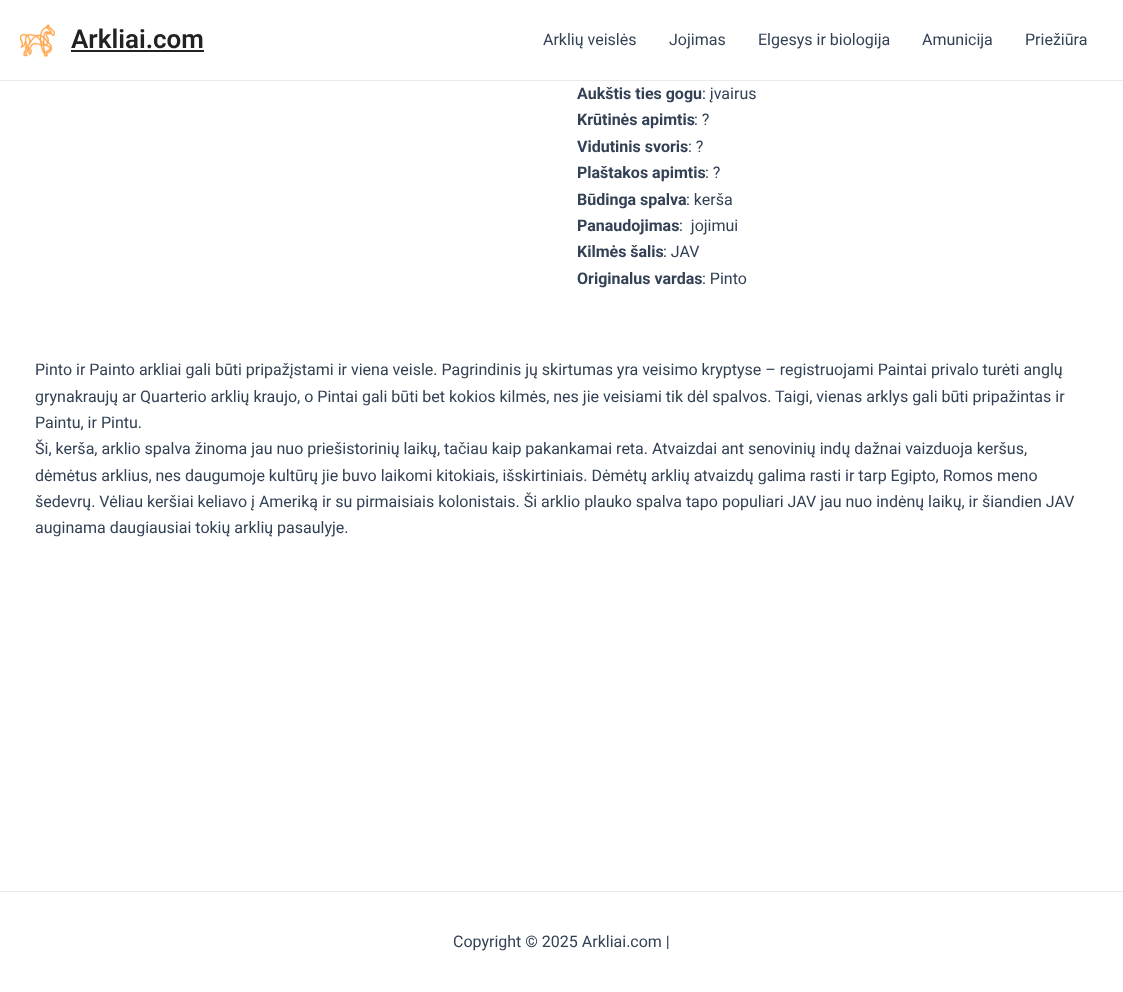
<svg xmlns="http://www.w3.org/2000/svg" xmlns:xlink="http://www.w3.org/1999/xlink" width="1123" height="992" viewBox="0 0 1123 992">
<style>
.cls-1{font:600 26px Roboto;fill:#222222}
.cls-2{font:16px Roboto;fill:#334155}
.cls-3{font:bold 16px Roboto;fill:#334155}
</style>
<rect width="100%" height="100%" fill="#ffffff"/>
<rect fill="#eaeaea" x="0" y="80" width="1123" height="1"/>
<image xlink:href="image0.png" x="20" y="24" width="35" height="33"/>
<rect fill="#222222" x="71" y="50" width="133" height="2"/>
<rect fill="#eaeaea" x="0" y="891" width="1123" height="1"/>
<text class="cls-1" x="71" y="48">Arkliai.com</text>
<text class="cls-2" x="543" y="45">Arklių veislės</text>
<text class="cls-2" x="669" y="45">Jojimas</text>
<text class="cls-2" x="758" y="45">Elgesys ir biologija</text>
<text class="cls-2" x="922" y="45">Amunicija</text>
<text class="cls-2" x="1025" y="45">Priežiūra</text>
<text class="cls-3" x="577" y="99">Aukštis ties gogu</text>
<text class="cls-2" x="702" y="99">: įvairus</text>
<text class="cls-3" x="577" y="125">Krūtinės apimtis</text>
<text class="cls-2" x="694" y="125">: ?</text>
<text class="cls-3" x="577" y="152">Vidutinis svoris</text>
<text class="cls-2" x="688" y="152">: ?</text>
<text class="cls-3" x="577" y="178">Plaštakos apimtis</text>
<text class="cls-2" x="705" y="178">: ?</text>
<text class="cls-3" x="577" y="205">Būdinga spalva</text>
<text class="cls-2" x="686" y="205">: kerša</text>
<text class="cls-3" x="577" y="231">Panaudojimas</text>
<text class="cls-2" xml:space="preserve" x="679" y="231">:  jojimui</text>
<text class="cls-3" x="577" y="257">Kilmės šalis</text>
<text class="cls-2" x="663" y="257">: JAV</text>
<text class="cls-3" x="577" y="284">Originalus vardas</text>
<text class="cls-2" x="702" y="284">: Pinto</text>
<text class="cls-2"><tspan x="35" y="375">Pinto ir Painto arkliai gali būti pripažįstami ir viena veisle. Pagrindinis jų skirtumas yra veisimo kryptyse – registruojami Paintai privalo turėti anglų</tspan><tspan x="35" y="402">grynakraujų ar Quarterio arklių kraujo, o Pintai gali būti bet kokios kilmės, nes jie veisiami tik dėl spalvos. Taigi, vienas arklys gali būti pripažintas ir</tspan><tspan x="35" y="428">Paintu, ir Pintu.</tspan><tspan x="35" y="454">Ši, kerša, arklio spalva žinoma jau nuo priešistorinių laikų, tačiau kaip pakankamai reta. Atvaizdai ant senovinių indų dažnai vaizduoja keršus,</tspan><tspan x="35" y="481">dėmėtus arklius, nes daugumoje kultūrų jie buvo laikomi kitokiais, išskirtiniais. Dėmėtų arklių atvaizdų galima rasti ir tarp Egipto, Romos meno</tspan><tspan x="35" y="507">šedevrų. Vėliau keršiai keliavo į Ameriką ir su pirmaisiais kolonistais. Ši arklio plauko spalva tapo populiari JAV jau nuo indėnų laikų, ir šiandien JAV</tspan><tspan x="35" y="533">auginama daugiausiai tokių arklių pasaulyje.</tspan></text>
<text class="cls-2" x="453" y="947">Copyright © 2025 Arkliai.com |</text>
</svg>
